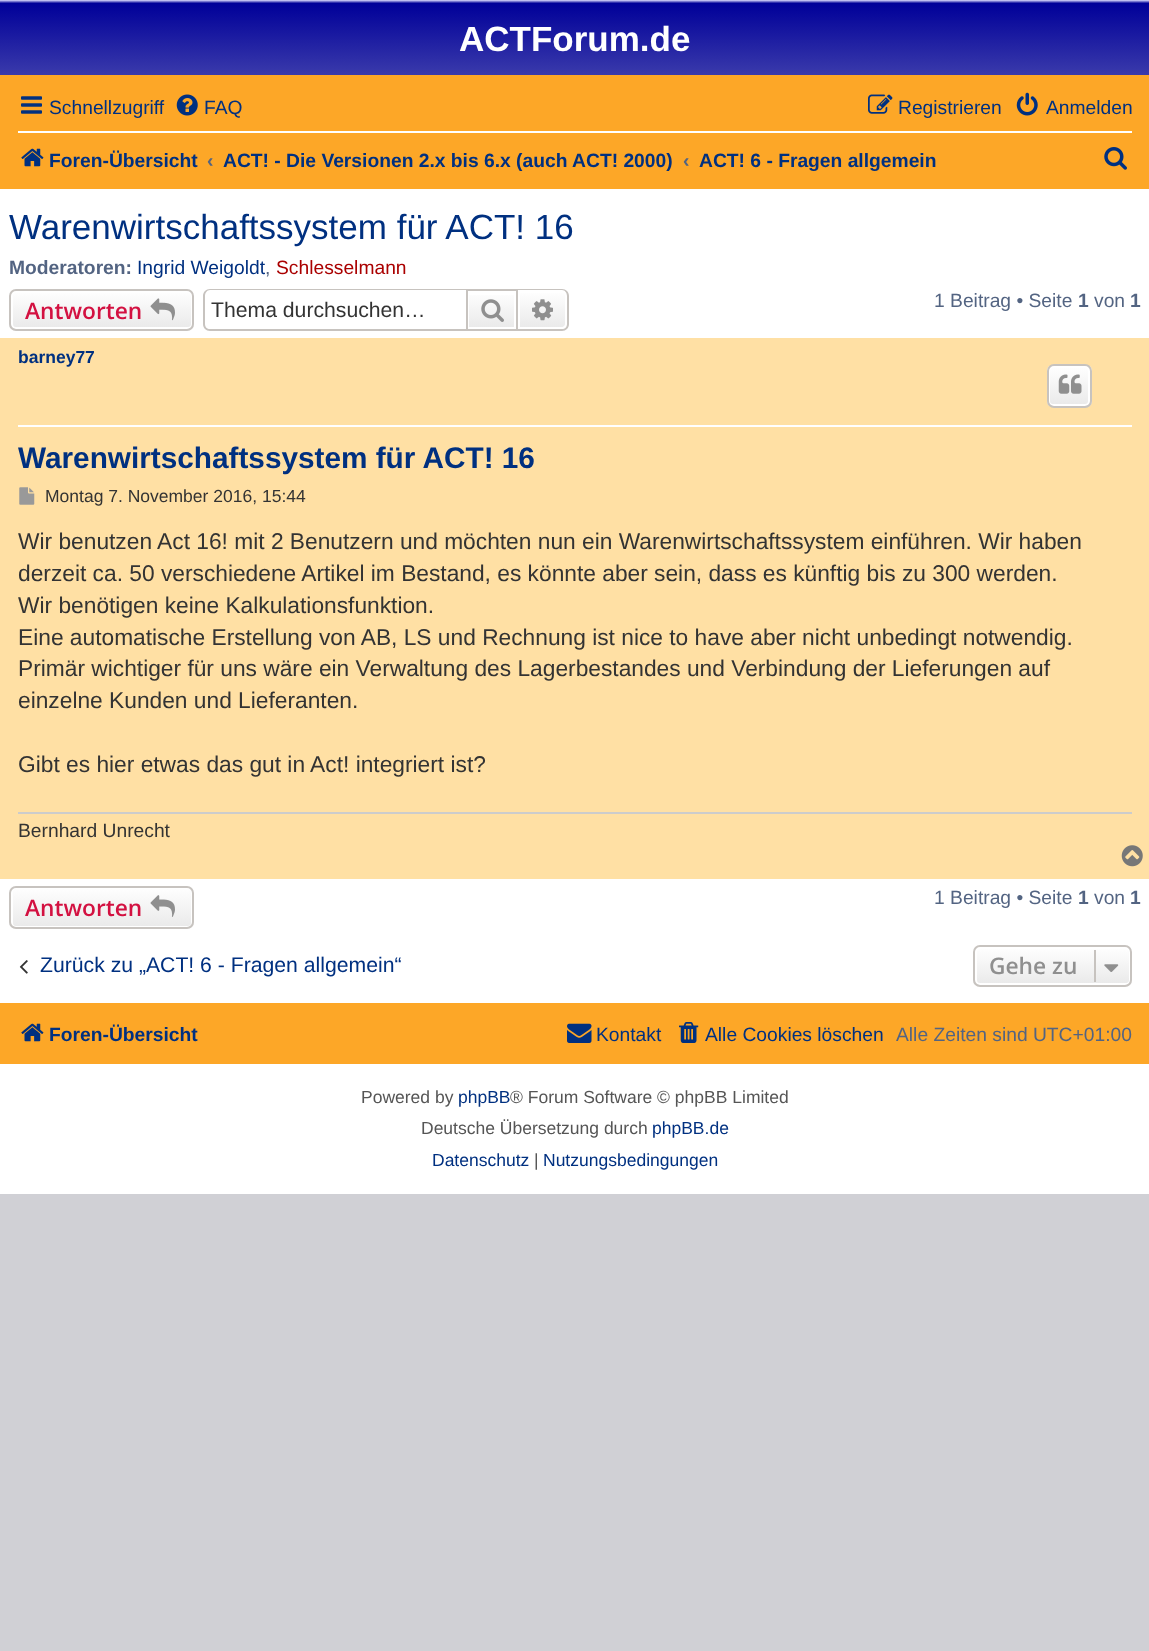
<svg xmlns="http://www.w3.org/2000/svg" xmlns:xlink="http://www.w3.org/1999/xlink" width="1149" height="1651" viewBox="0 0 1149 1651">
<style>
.cls-1{font:bold 35px Liberation Sans;fill:#ffffff}
.cls-2{font:19.25px Liberation Sans;fill:#003080}
.cls-3{font:bold 19.25px Liberation Sans;fill:#003080}
.cls-4{font:bold 19.25px Liberation Sans;fill:#536482}
.cls-5{font:35px Liberation Sans;fill:#003080}
.cls-6{font:19.25px Liberation Sans;fill:#536482}
.cls-7{font:19.25px Liberation Sans;fill:#aa0000}
.cls-8{font:600 22.75px Open Sans;fill:#d31141}
.cls-9{font:21.2px Liberation Sans;fill:#333333}
.cls-10{font:bold 17.5px Liberation Sans;fill:#003080}
.cls-11{font:bold 29.75px Liberation Sans;fill:#003080}
.cls-12{font:17.5px Liberation Sans;fill:#333333}
.cls-13{font:22.75px Liberation Sans;fill:#333333}
.cls-14{font:19.25px Liberation Sans;fill:#333333}
.cls-15{font:21.2px Liberation Sans;fill:#003080}
.cls-16{font:600 22.75px Open Sans;fill:#8f8f8f}
.cls-17{font:17.5px Liberation Sans;fill:#555555}
.cls-18{font:17.5px Liberation Sans;fill:#003080}
</style>
<defs>
<linearGradient id="g1" gradientUnits="userSpaceOnUse" x1="575" y1="0" x2="575" y2="161"><stop offset="0" stop-color="#e0e0ff"/><stop offset="0.02" stop-color="#000099"/><stop offset="1" stop-color="#8080c0"/></linearGradient>
<clipPath id="clip1"><rect x="9" y="289" width="185" height="42" rx="7"/></clipPath>
<linearGradient id="g2" gradientUnits="userSpaceOnUse" x1="102" y1="291" x2="102" y2="329"><stop offset="0" stop-color="#ffffff"/><stop offset="1" stop-color="#e9e9e9"/></linearGradient>
<linearGradient id="g3" gradientUnits="userSpaceOnUse" x1="492" y1="291" x2="492" y2="329"><stop offset="0" stop-color="#ffffff"/><stop offset="1" stop-color="#e9e9e9"/></linearGradient>
<linearGradient id="g4" gradientUnits="userSpaceOnUse" x1="543" y1="291" x2="543" y2="329"><stop offset="0" stop-color="#ffffff"/><stop offset="1" stop-color="#e9e9e9"/></linearGradient>
<clipPath id="clip2"><rect x="1047" y="364" width="45" height="44" rx="7"/></clipPath>
<linearGradient id="g5" gradientUnits="userSpaceOnUse" x1="1069" y1="366" x2="1069" y2="406"><stop offset="0" stop-color="#ffffff"/><stop offset="1" stop-color="#e9e9e9"/></linearGradient>
<clipPath id="clip3"><rect x="9" y="886" width="185" height="43" rx="7"/></clipPath>
<linearGradient id="g6" gradientUnits="userSpaceOnUse" x1="102" y1="887" x2="102" y2="928"><stop offset="0" stop-color="#ffffff"/><stop offset="1" stop-color="#e9e9e9"/></linearGradient>
<clipPath id="clip4"><rect x="973" y="945" width="159" height="42" rx="7"/></clipPath>
<linearGradient id="g7" gradientUnits="userSpaceOnUse" x1="1053" y1="947" x2="1053" y2="985"><stop offset="0" stop-color="#ffffff"/><stop offset="1" stop-color="#e9e9e9"/></linearGradient>
</defs>
<rect width="100%" height="100%" fill="#d0d0d5"/>
<rect fill="#ffffff" x="0" y="189" width="1149" height="1005"/>
<rect fill="url(#g1)" x="0" y="0" width="1149" height="75"/>
<rect fill="#fda727" x="0" y="75" width="1149" height="114"/>
<image xlink:href="image0.png" x="21" y="96" width="21" height="18"/>
<image xlink:href="image1.png" x="176" y="94" width="22" height="22"/>
<image xlink:href="image2.png" x="868" y="94" width="25" height="20"/>
<image xlink:href="image3.png" x="1016" y="92" width="22" height="24"/>
<rect fill="#ffffff" x="18" y="131" width="1114" height="2"/>
<image xlink:href="image4.png" x="21" y="148" width="23" height="19"/>
<image xlink:href="image5.png" x="1104" y="147" width="23" height="23"/>
<g clip-path="url(#clip1)">
<rect fill="url(#g2)" x="9" y="291" width="185" height="38"/>
</g>
<rect fill="none" stroke="#ffffff" stroke-width="2" x="12" y="292" width="180" height="36" rx="4"/>
<rect fill="none" stroke="#c7c3bf" stroke-width="2" x="10" y="290" width="183" height="40" rx="6"/>
<image xlink:href="image6.png" x="150" y="298" width="25" height="23"/>
<path fill="#c7c3bf" fill-rule="evenodd" d="M210 289H466V331H210C206 331 203 328 203 324V296C203 292 206 289 210 289ZM210 290H466V329H210C207 329 205 327 205 324V296C205 293 207 290 210 290Z"/>
<rect fill="url(#g3)" x="469" y="295" width="45" height="32"/>
<rect fill="none" stroke="#c7c3bf" stroke-width="2" x="467" y="290" width="50" height="40"/>
<image xlink:href="image7.png" x="481" y="299" width="23" height="23"/>
<path fill="url(#g4)" stroke="#ffffff" stroke-width="2" d="M519 292H562C564 292 566 294 566 296V324C566 326 564 328 562 328H519Z"/>
<path fill="#c7c3bf" fill-rule="evenodd" d="M518 289H562C566 289 569 292 569 296V324C569 328 566 331 562 331H518ZM518 290H562C565 290 567 293 567 296V324C567 327 565 329 562 329H518Z"/>
<image xlink:href="image8.png" x="532" y="299" width="21" height="22"/>
<rect fill="#ffe0a4" x="0" y="338" width="1149" height="541"/>
<rect fill="#ffffff" x="18" y="425" width="1114" height="2"/>
<g clip-path="url(#clip2)">
<rect fill="url(#g5)" x="1047" y="366" width="45" height="40"/>
</g>
<rect fill="none" stroke="#ffffff" stroke-width="2" x="1049" y="367" width="40" height="38" rx="4"/>
<rect fill="none" stroke="#c7c3bf" stroke-width="2" x="1048" y="365" width="43" height="42" rx="6"/>
<image xlink:href="image9.png" x="1058" y="374" width="24" height="20"/>
<image xlink:href="image10.png" x="19" y="487" width="16" height="18"/>
<rect fill="#cccccc" x="18" y="812" width="1114" height="2"/>
<image xlink:href="image11.png" x="1121" y="845" width="22" height="22"/>
<g clip-path="url(#clip3)">
<rect fill="url(#g6)" x="9" y="887" width="185" height="41"/>
</g>
<rect fill="none" stroke="#ffffff" stroke-width="2" x="12" y="888" width="180" height="39" rx="4"/>
<rect fill="none" stroke="#c7c3bf" stroke-width="2" x="10" y="887" width="183" height="41" rx="6"/>
<image xlink:href="image12.png" x="150" y="895" width="25" height="22"/>
<image xlink:href="image13.png" x="19" y="960" width="9" height="14"/>
<g clip-path="url(#clip4)">
<rect fill="url(#g7)" x="973" y="947" width="159" height="38"/>
</g>
<rect fill="none" stroke="#ffffff" stroke-width="2" x="976" y="948" width="154" height="36" rx="4"/>
<rect fill="none" stroke="#c7c3bf" stroke-width="2" x="974" y="946" width="157" height="40" rx="6"/>
<rect fill="#c7c3bf" x="1094" y="950" width="2" height="32"/>
<image xlink:href="image14.png" x="1104" y="964" width="15" height="8"/>
<rect fill="#fda727" x="0" y="1003" width="1149" height="61"/>
<image xlink:href="image4.png" x="21" y="1023" width="23" height="19"/>
<image xlink:href="image15.png" x="567" y="1023" width="25" height="20"/>
<image xlink:href="image16.png" x="679" y="1022" width="20" height="21"/>
<text class="cls-1" x="459" y="51">ACTForum.de</text>
<text class="cls-2" x="49" y="114">Schnellzugriff</text>
<text class="cls-2" x="204" y="114">FAQ</text>
<text class="cls-2" x="898" y="114">Registrieren</text>
<text class="cls-2" x="1046" y="114">Anmelden</text>
<text class="cls-3" x="49" y="167">Foren-Übersicht</text>
<text class="cls-4" x="207" y="167">‹</text>
<text class="cls-3" x="223" y="167">ACT! - Die Versionen 2.x bis 6.x (auch ACT! 2000)</text>
<text class="cls-4" x="683" y="167">‹</text>
<text class="cls-3" x="699" y="167">ACT! 6 - Fragen allgemein</text>
<text class="cls-5" x="9" y="239">Warenwirtschaftssystem für ACT! 16</text>
<text class="cls-4" x="9" y="274">Moderatoren:</text>
<text class="cls-2" x="137" y="274">Ingrid Weigoldt</text>
<text class="cls-6" x="265" y="274">,</text>
<text class="cls-7" x="276" y="274">Schlesselmann</text>
<text class="cls-8" x="25" y="319">Antworten</text>
<text class="cls-9" x="211" y="317">Thema durchsuchen…</text>
<text class="cls-6" x="934" y="307">1 Beitrag • Seite</text>
<text class="cls-4" x="1078" y="307">1</text>
<text class="cls-6" x="1094" y="307">von</text>
<text class="cls-4" x="1130" y="307">1</text>
<text class="cls-10" x="18" y="363">barney77</text>
<text class="cls-11" x="18" y="468">Warenwirtschaftssystem für ACT! 16</text>
<text class="cls-12" x="45" y="502">Montag 7. November 2016, 15:44</text>
<text class="cls-13"><tspan x="18" y="549">Wir benutzen Act 16! mit 2 Benutzern und möchten nun ein Warenwirtschaftssystem einführen. Wir haben</tspan><tspan x="18" y="581">derzeit ca. 50 verschiedene Artikel im Bestand, es könnte aber sein, dass es künftig bis zu 300 werden.</tspan><tspan x="18" y="613">Wir benötigen keine Kalkulationsfunktion.</tspan><tspan x="18" y="645">Eine automatische Erstellung von AB, LS und Rechnung ist nice to have aber nicht unbedingt notwendig.</tspan><tspan x="18" y="676">Primär wichtiger für uns wäre ein Verwaltung des Lagerbestandes und Verbindung der Lieferungen auf</tspan><tspan x="18" y="708">einzelne Kunden und Lieferanten.</tspan></text>
<text class="cls-13" x="18" y="772">Gibt es hier etwas das gut in Act! integriert ist?</text>
<text class="cls-14" x="18" y="837">Bernhard Unrecht</text>
<text class="cls-8" x="25" y="916">Antworten</text>
<text class="cls-6" x="934" y="904">1 Beitrag • Seite</text>
<text class="cls-4" x="1078" y="904">1</text>
<text class="cls-6" x="1094" y="904">von</text>
<text class="cls-4" x="1130" y="904">1</text>
<text class="cls-15" x="40" y="972">Zurück zu „ACT! 6 - Fragen allgemein“</text>
<text class="cls-16" x="989" y="974">Gehe zu</text>
<text class="cls-3" x="49" y="1041">Foren-Übersicht</text>
<text class="cls-2" x="596" y="1041">Kontakt</text>
<text class="cls-2" x="705" y="1041">Alle Cookies löschen</text>
<text class="cls-6" x="896" y="1041">Alle Zeiten sind UTC+01:00</text>
<text class="cls-17" x="361" y="1103">Powered by</text>
<text class="cls-18" x="458" y="1103">phpBB</text>
<text class="cls-17" x="510" y="1103">® Forum Software © phpBB Limited</text>
<text class="cls-17" x="421" y="1134">Deutsche Übersetzung durch</text>
<text class="cls-18" x="652" y="1134">phpBB.de</text>
<text class="cls-18" x="432" y="1166">Datenschutz</text>
<text class="cls-17" x="534" y="1166">|</text>
<text class="cls-18" x="543" y="1166">Nutzungsbedingungen</text>
</svg>
